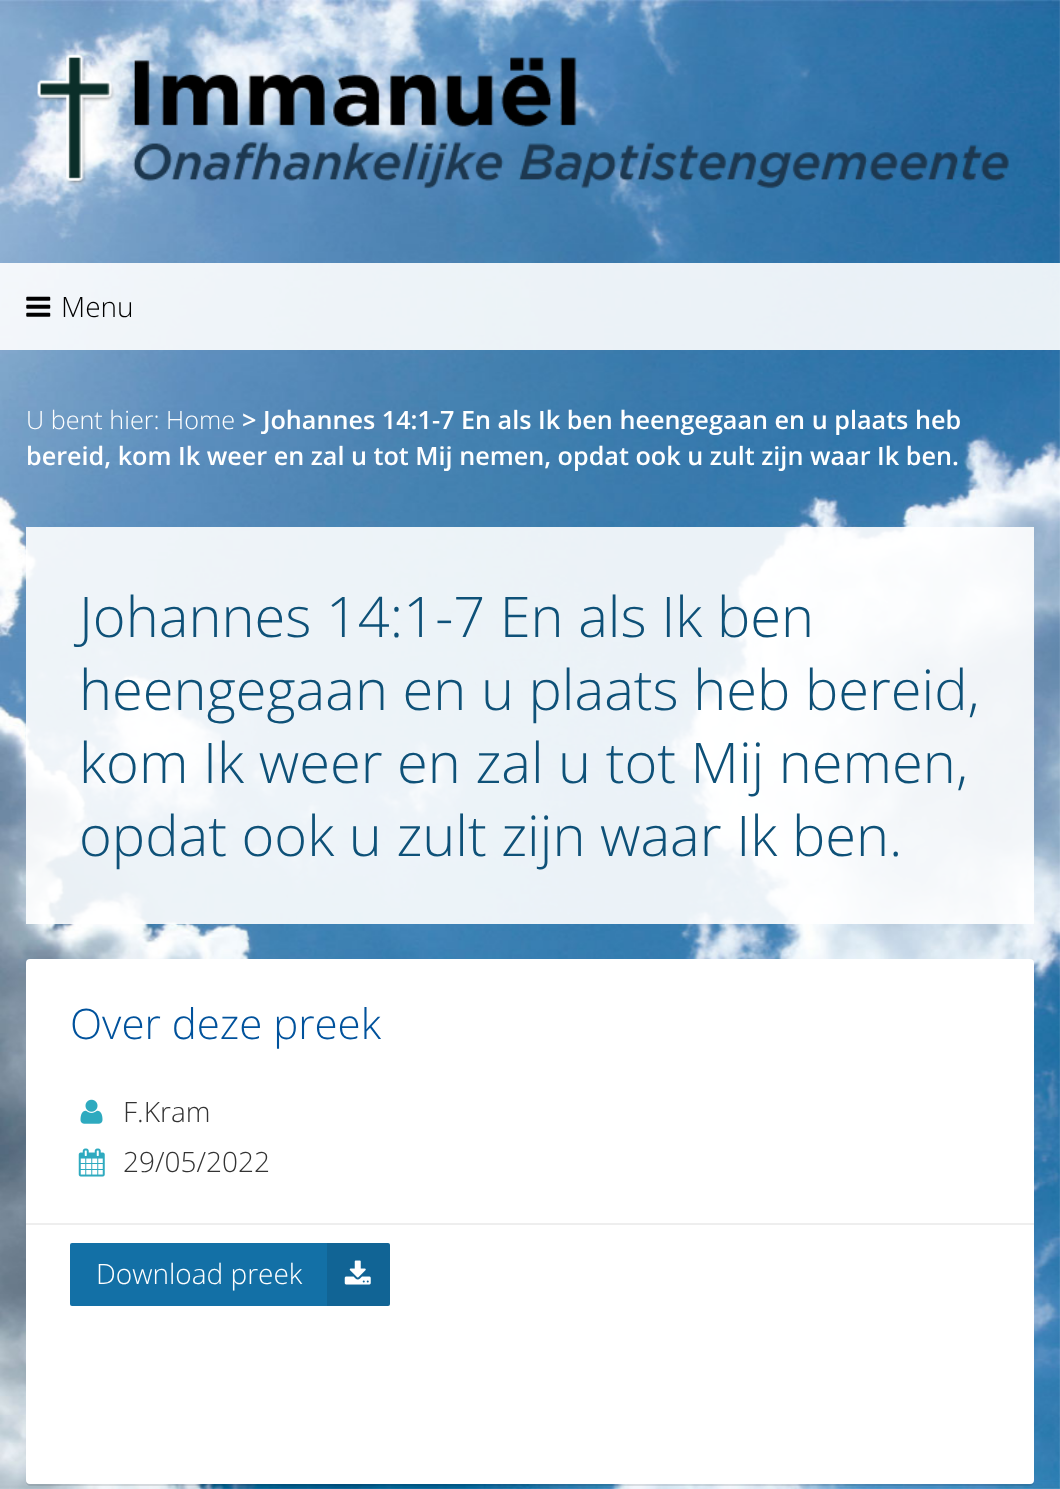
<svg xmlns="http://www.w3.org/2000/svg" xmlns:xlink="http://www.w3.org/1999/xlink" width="1060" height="1489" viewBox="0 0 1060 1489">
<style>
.cls-1{font:300 28px Open Sans;fill:#000000}
.cls-2{font:300 25.2px Open Sans;fill:#ffffff}
.cls-3{font:600 25.2px Open Sans;fill:#ffffff}
.cls-4{font:300 56px Open Sans;fill:#0e5178}
.cls-5{font:300 42px Open Sans;fill:#00529c}
.cls-6{font:300 28px Open Sans;fill:#333333}
.cls-7{font:300 28px Open Sans;fill:#ffffff}
</style>
<rect width="100%" height="100%" fill="#ffffff"/>
<image xlink:href="image0.png" x="0" y="0" width="1060" height="1489"/>
<image xlink:href="image1.png" x="37" y="54" width="972" height="135"/>
<rect fill="#ffffff" fill-opacity="0.9" x="0" y="263" width="1060" height="87"/>
<image xlink:href="image2.png" x="26" y="296" width="25" height="21"/>
<rect fill="#ffffff" fill-opacity="0.9" x="26" y="527" width="1008" height="397"/>
<path fill="#000000" fill-opacity="0.1" d="M26 964V1482C26 1484 28 1486 30 1486H1030C1032 1486 1034 1484 1034 1482C1033 1483 1032 1484 1031 1484H30C28 1484 26 1482 26 1480Z"/>
<rect fill="#ffffff" x="26" y="959" width="1008" height="525" rx="4"/>
<image xlink:href="image3.png" x="80" y="1099" width="23" height="25"/>
<image xlink:href="image4.png" x="78" y="1148" width="27" height="29"/>
<rect fill="#eeeeee" x="26" y="1223" width="1008" height="2"/>
<rect fill="#1370a6" x="70" y="1243" width="320" height="63" rx="2"/>
<path fill="#000000" fill-opacity="0.1" d="M327 1243H388C389 1243 390 1244 390 1245V1304C390 1305 389 1306 388 1306H327Z"/>
<image xlink:href="image5.png" x="344" y="1260" width="27" height="25"/>
<text class="cls-1" x="61" y="317">Menu</text>
<text class="cls-2" x="26" y="429">U bent hier: Home</text>
<text class="cls-3" x="242" y="429">&gt; Johannes 14:1-7 En als Ik ben heengegaan en u plaats heb</text>
<text class="cls-3" x="26" y="465">bereid, kom Ik weer en zal u tot Mij nemen, opdat ook u zult zijn waar Ik ben.</text>
<text class="cls-4"><tspan x="79" y="637">Johannes 14:1-7 En als Ik ben</tspan><tspan x="79" y="710">heengegaan en u plaats heb bereid,</tspan><tspan x="79" y="783">kom Ik weer en zal u tot Mij nemen,</tspan><tspan x="79" y="856">opdat ook u zult zijn waar Ik ben.</tspan></text>
<text class="cls-5" x="70" y="1039">Over deze preek</text>
<text class="cls-6"><tspan x="123" y="1122">F.Kram</tspan><tspan x="123" y="1172">29/05/2022</tspan></text>
<text class="cls-7" x="96" y="1284">Download preek</text>
</svg>
